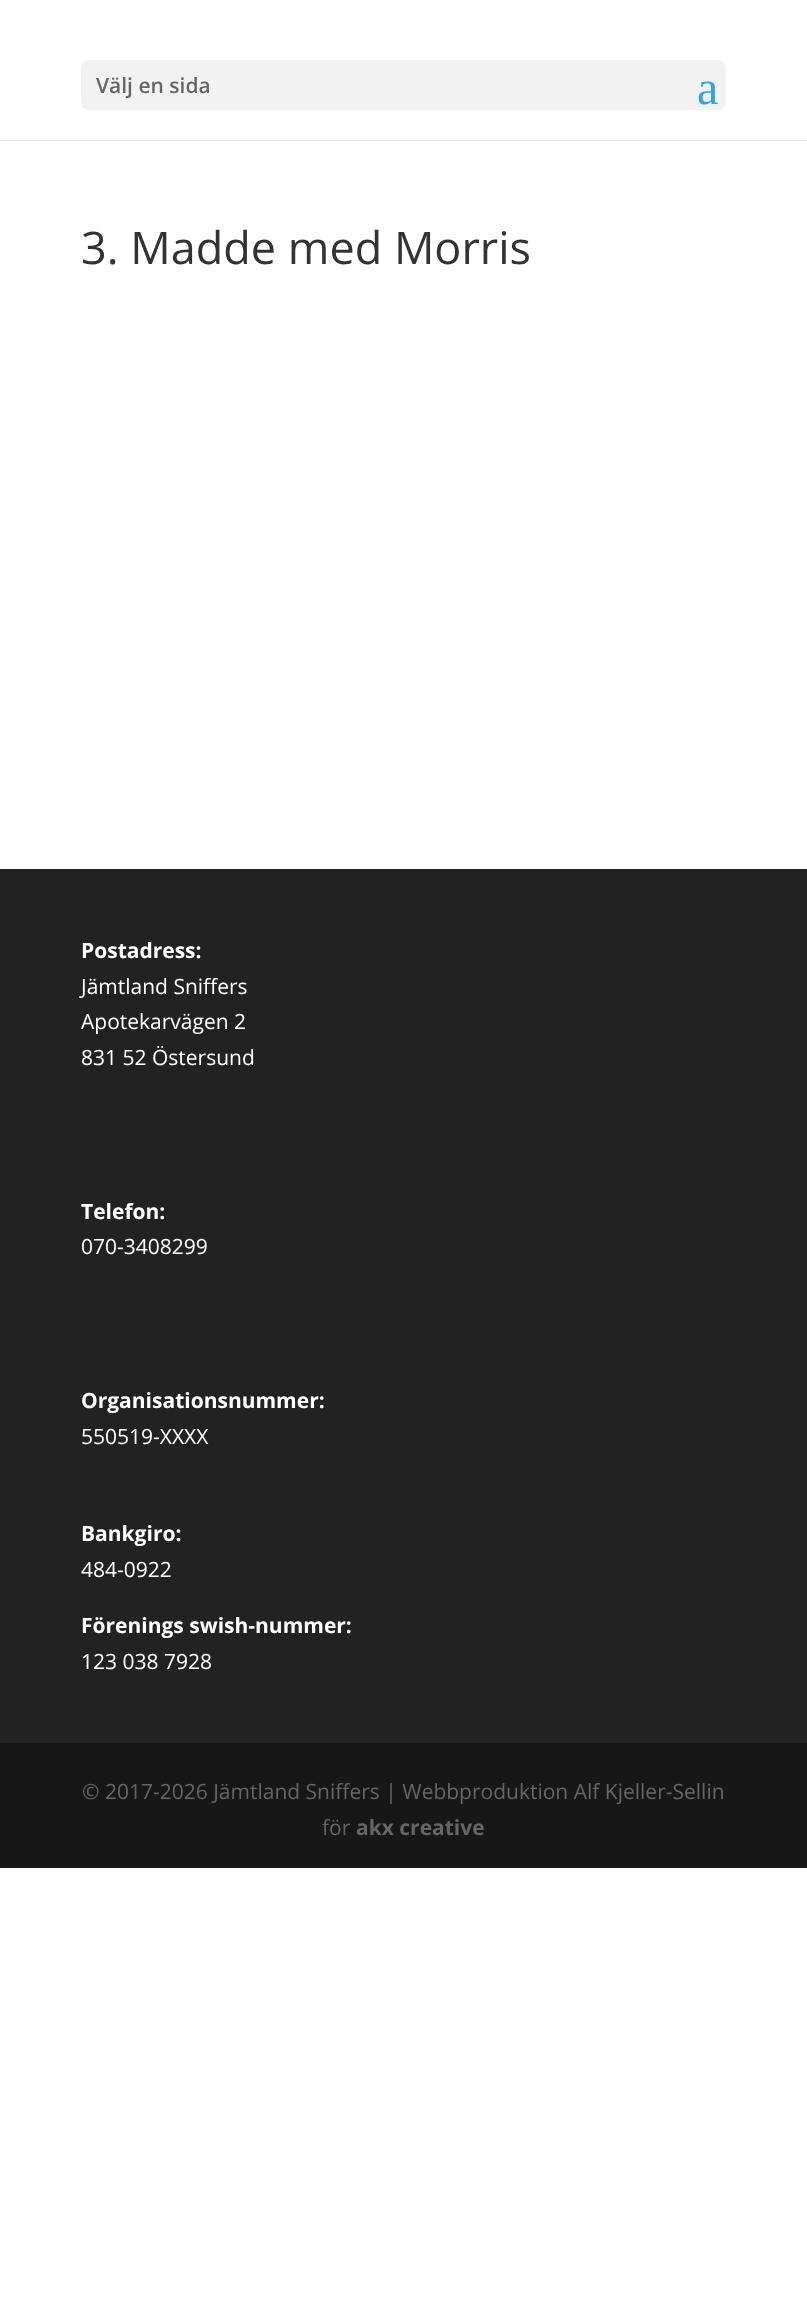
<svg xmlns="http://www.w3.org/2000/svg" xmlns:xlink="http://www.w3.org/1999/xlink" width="807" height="2321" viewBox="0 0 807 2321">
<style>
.cls-1{font:600 21px Open Sans;fill:#666666}
.cls-2{font:48px Liberation Serif;fill:#2ea3f2}
.cls-3{font:45px Open Sans;fill:#333333}
.cls-4{font:bold 21px Open Sans;fill:#ffffff}
.cls-5{font:21px Open Sans;fill:#ffffff}
.cls-6{font:21px Open Sans;fill:#666666}
.cls-7{font:bold 21px Open Sans;fill:#666666}
</style>
<rect width="100%" height="100%" fill="#ffffff"/>
<rect fill="#e6e6e6" x="0" y="140" width="807" height="1"/>
<rect fill="#f2f2f2" x="81" y="60" width="645" height="50" rx="8"/>
<rect fill="#222222" x="0" y="869" width="807" height="874"/>
<rect fill="#171717" x="0" y="1743" width="807" height="125"/>
<text class="cls-1" x="96" y="93">Välj en sida</text>
<text class="cls-2" x="697" y="104">a</text>
<text class="cls-3" x="81" y="264">3. Madde med Morris</text>
<text class="cls-4" x="81" y="958">Postadress:</text>
<text class="cls-5"><tspan x="81" y="994">Jämtland Sniffers</tspan><tspan x="81" y="1029">Apotekarvägen 2</tspan><tspan x="81" y="1065">831 52 Östersund</tspan></text>
<text class="cls-4" x="81" y="1219">Telefon:</text>
<text class="cls-5" x="81" y="1254">070-3408299</text>
<text class="cls-4" x="81" y="1408">Organisationsnummer:</text>
<text class="cls-5" x="81" y="1444">550519-XXXX</text>
<text class="cls-4" x="81" y="1541">Bankgiro:</text>
<text class="cls-5" x="81" y="1577">484-0922</text>
<text class="cls-4" x="81" y="1633">Förenings swish-nummer:</text>
<text class="cls-5" x="81" y="1669">123 038 7928</text>
<text class="cls-6" x="82" y="1799">© 2017-2026 Jämtland Sniffers | Webbproduktion Alf Kjeller-Sellin</text>
<text class="cls-6" x="322" y="1835">för</text>
<text class="cls-7" x="356" y="1835">akx creative</text>
</svg>
